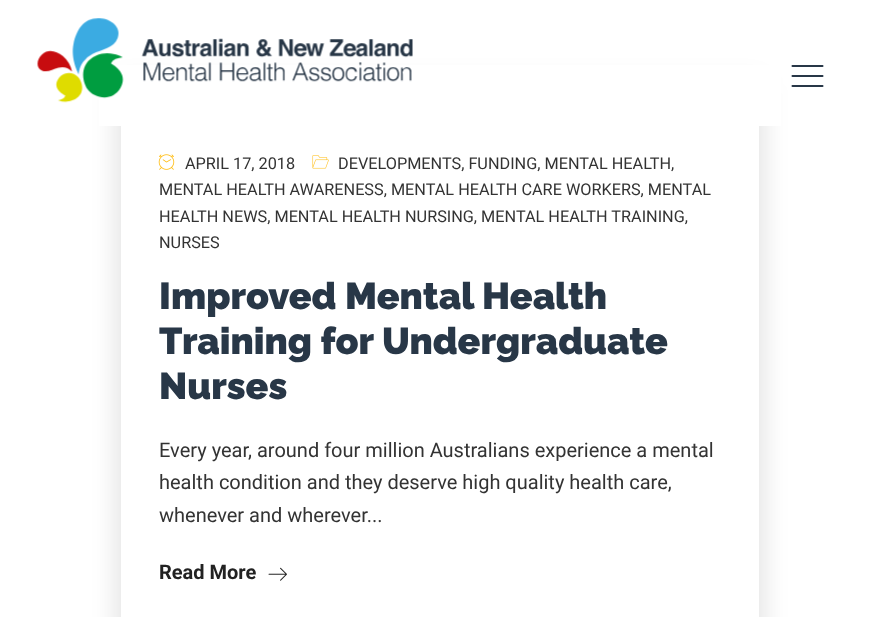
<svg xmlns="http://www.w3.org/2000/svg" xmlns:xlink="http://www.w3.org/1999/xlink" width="879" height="617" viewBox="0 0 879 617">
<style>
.cls-1{font:16.25px Roboto;fill:#333333}
.cls-2{font:900 37.5px Raleway;fill:#283747}
.cls-3{font:20px Roboto;fill:#333333}
.cls-4{font:bold 20px Roboto;fill:#222222}
</style>
<defs>
<clipPath id="clip1"><path d="M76 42H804V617H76ZM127 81H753C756.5 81 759 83.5 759 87V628C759 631.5 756.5 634 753 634H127C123.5 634 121 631.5 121 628V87C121 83.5 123.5 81 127 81Z" clip-rule="evenodd"/></clipPath>
</defs>
<rect width="100%" height="100%" fill="#ffffff"/>
<g clip-path="url(#clip1)">
<rect fill="#000000" fill-opacity="0.1" filter="blur(12.5px)" x="115" y="81" width="650" height="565" rx="13"/>
</g>
<rect fill="#ffffff" fill-opacity="0.99" x="99" y="65" width="682" height="61"/>
<image xlink:href="image0.png" x="37" y="18" width="376" height="85"/>
<image xlink:href="image1.png" x="791" y="65" width="33" height="22"/>
<image xlink:href="image2.png" x="158" y="154" width="17" height="16"/>
<image xlink:href="image3.png" x="312" y="155" width="17" height="14"/>
<image xlink:href="image4.png" x="268" y="567" width="19" height="14"/>
<text class="cls-1" x="185" y="169">APRIL 17, 2018</text>
<text class="cls-1" x="338" y="169">DEVELOPMENTS, FUNDING, MENTAL HEALTH,</text>
<text class="cls-1"><tspan x="159" y="195">MENTAL HEALTH AWARENESS, MENTAL HEALTH CARE WORKERS, MENTAL</tspan><tspan x="159" y="222">HEALTH NEWS, MENTAL HEALTH NURSING, MENTAL HEALTH TRAINING,</tspan><tspan x="159" y="248">NURSES</tspan></text>
<text class="cls-2"><tspan x="159" y="309">Improved Mental Health</tspan><tspan x="159" y="354">Training for Undergraduate</tspan><tspan x="159" y="399">Nurses</tspan></text>
<text class="cls-3"><tspan x="159" y="457">Every year, around four million Australians experience a mental</tspan><tspan x="159" y="489">health condition and they deserve high quality health care,</tspan><tspan x="159" y="522">whenever and wherever...</tspan></text>
<text class="cls-4" x="159" y="579">Read More</text>
</svg>
